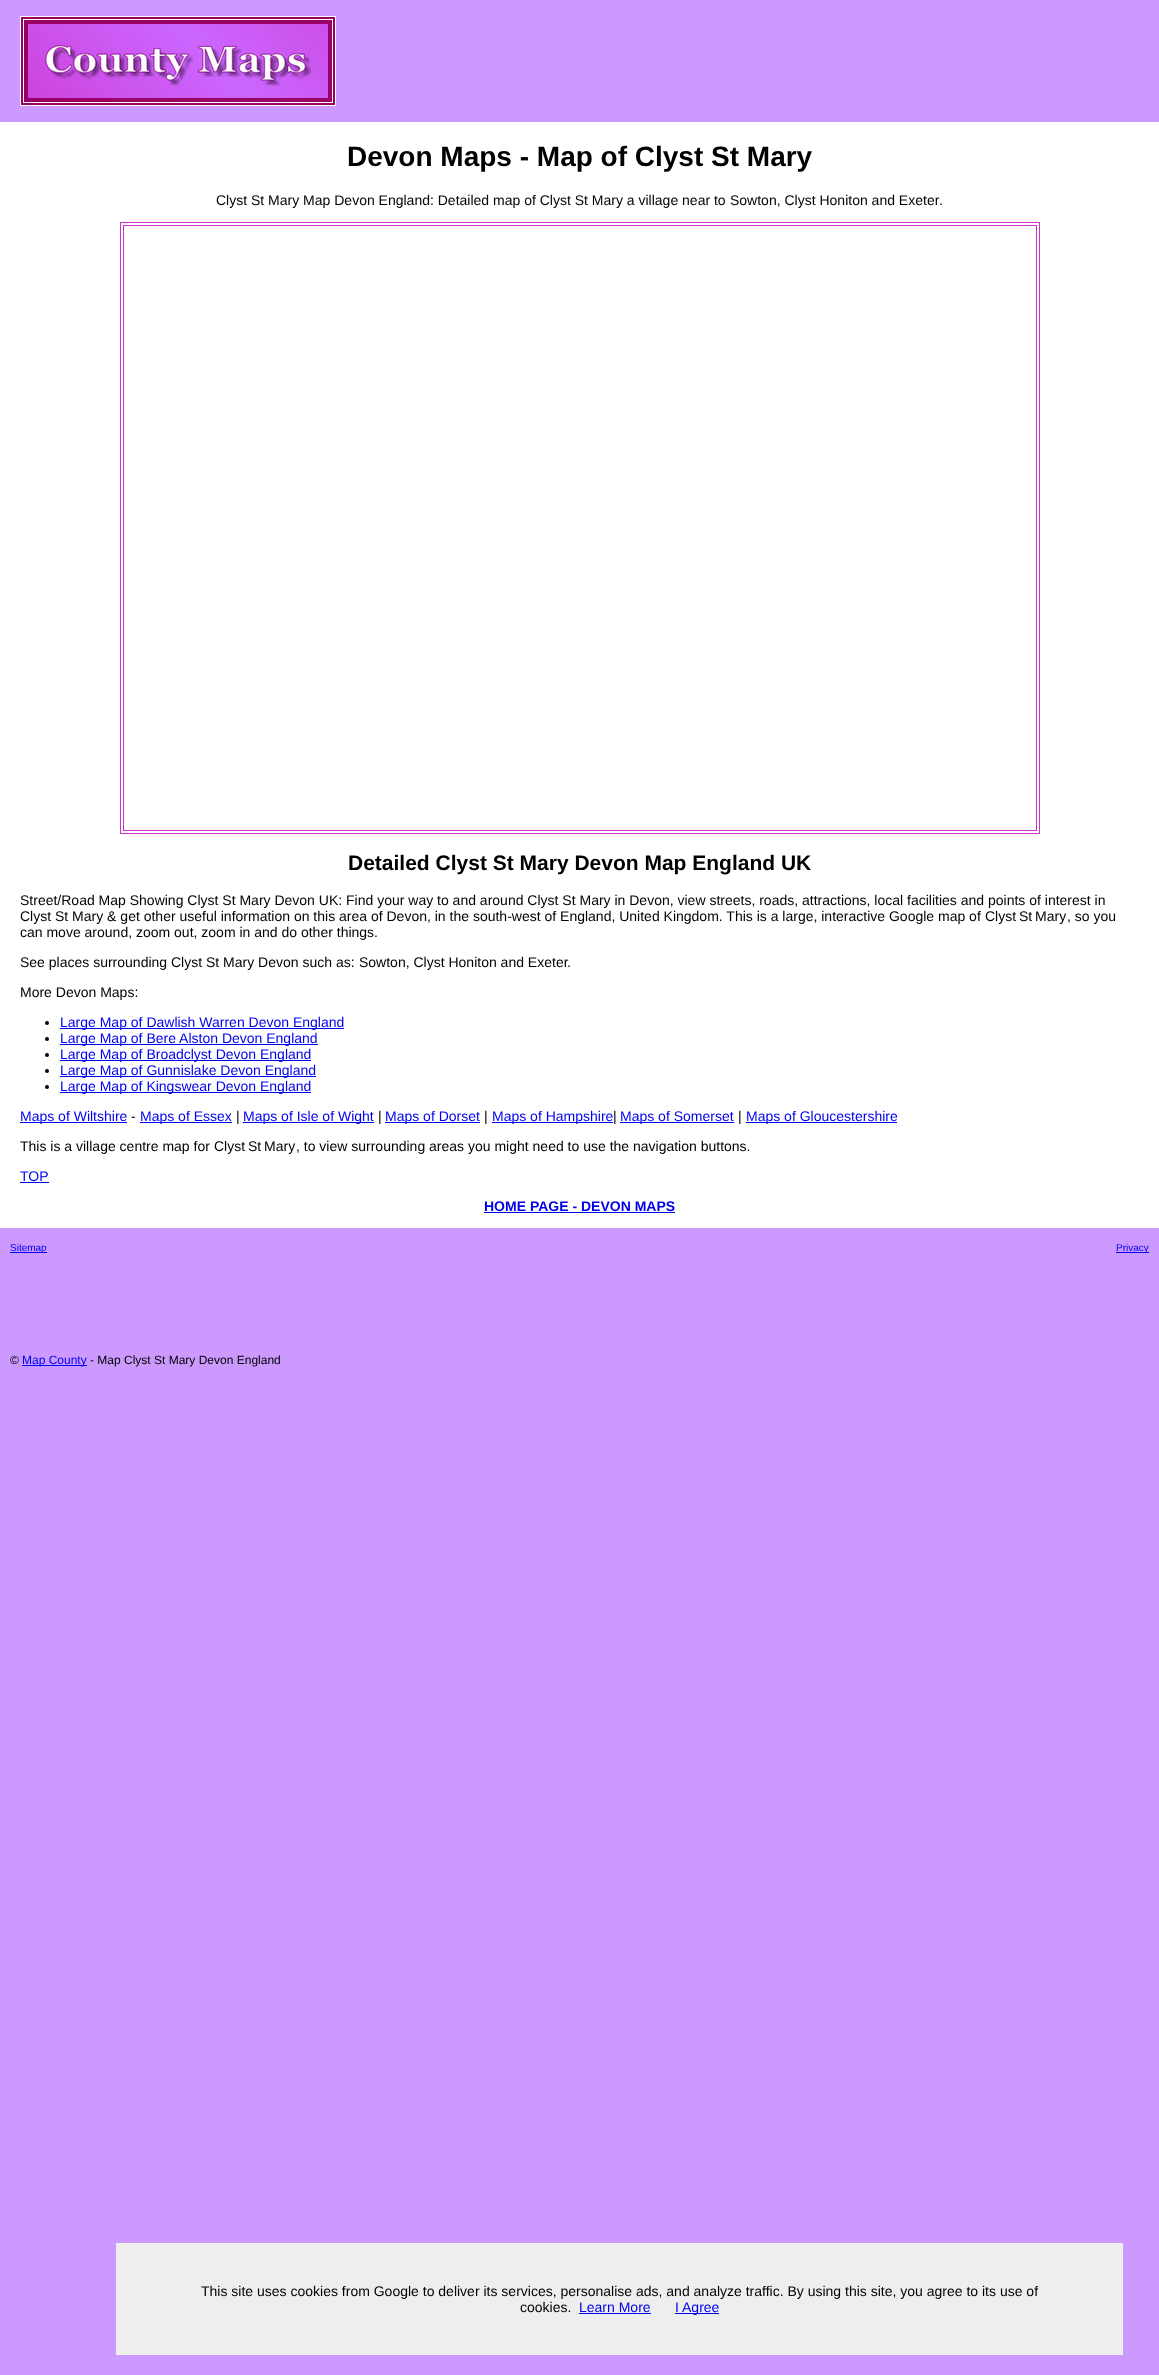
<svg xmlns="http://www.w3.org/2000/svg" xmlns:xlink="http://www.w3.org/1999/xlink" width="1159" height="2375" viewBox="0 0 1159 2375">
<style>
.cls-1{font:bold 28px Liberation Sans;fill:#000000}
.cls-2{font:14px Liberation Sans;fill:#000000}
.cls-3{font:bold 21px Liberation Sans;fill:#000000}
.cls-4{font:14px Liberation Sans;fill:#0000ee}
.cls-5{font:bold 14px Liberation Sans;fill:#0000ee}
.cls-6{font:10px Liberation Sans;fill:#0000ee}
.cls-7{font:12px Liberation Sans;fill:#000000}
.cls-8{font:12px Liberation Sans;fill:#0000ee}
</style>
<rect width="100%" height="100%" fill="#cc99ff"/>
<rect fill="#ffffff" x="0" y="122" width="1159" height="1106"/>
<rect fill="#990066" stroke="#ffffff" x="20.5" y="16.5" width="315" height="89"/>
<rect fill="none" stroke="#ffffff" x="23.5" y="19.5" width="309" height="83"/>
<image xlink:href="image0.png" x="28" y="24" width="300" height="74"/>
<rect fill="none" stroke="#cc33cc" x="120.5" y="222.5" width="919" height="611"/>
<rect fill="none" stroke="#cc33cc" x="123.5" y="225.5" width="913" height="605"/>
<circle fill="#000000" cx="47" cy="1023" r="2"/>
<rect fill="#0000ee" x="60" y="1028" width="284" height="1"/>
<circle fill="#000000" cx="47" cy="1039" r="2"/>
<rect fill="#0000ee" x="60" y="1044" width="258" height="1"/>
<circle fill="#000000" cx="47" cy="1055" r="2"/>
<rect fill="#0000ee" x="60" y="1060" width="251" height="1"/>
<circle fill="#000000" cx="47" cy="1071" r="2"/>
<rect fill="#0000ee" x="60" y="1076" width="256" height="1"/>
<circle fill="#000000" cx="47" cy="1087" r="2"/>
<rect fill="#0000ee" x="60" y="1092" width="251" height="1"/>
<rect fill="#0000ee" x="20" y="1122" width="107" height="1"/>
<rect fill="#0000ee" x="140" y="1122" width="92" height="1"/>
<rect fill="#0000ee" x="243" y="1122" width="131" height="1"/>
<rect fill="#0000ee" x="385" y="1122" width="95" height="1"/>
<rect fill="#0000ee" x="492" y="1122" width="121" height="1"/>
<rect fill="#0000ee" x="620" y="1122" width="114" height="1"/>
<rect fill="#0000ee" x="746" y="1122" width="151" height="1"/>
<rect fill="#0000ee" x="20" y="1182" width="29" height="1"/>
<rect fill="#0000ee" x="484" y="1212" width="191" height="1"/>
<rect fill="#0000ee" x="10" y="1252" width="37" height="1"/>
<rect fill="#0000ee" x="1116" y="1252" width="33" height="1"/>
<rect fill="#0000ee" x="22" y="1365" width="65" height="1"/>
<rect fill="#eeeeee" x="116" y="2243" width="1007" height="112"/>
<rect fill="#0000ee" x="579" y="2313" width="72" height="1"/>
<rect fill="#0000ee" x="675" y="2313" width="44" height="1"/>
<text class="cls-1" x="347" y="166">Devon Maps - Map of Clyst St Mary</text>
<text class="cls-2" x="216" y="205">Clyst St Mary Map Devon England: Detailed map of Clyst St Mary a village near to</text>
<text class="cls-2" x="730" y="205">Sowton, Clyst Honiton and Exeter</text>
<text class="cls-2" x="939" y="205">.</text>
<text class="cls-3" x="348" y="870">Detailed Clyst St Mary Devon Map England UK</text>
<text class="cls-2"><tspan x="20" y="905">Street/Road Map Showing Clyst St Mary Devon UK: Find your way to and around Clyst St Mary in Devon, view streets, roads, attractions, local facilities and points of interest in</tspan><tspan x="20" y="921">Clyst St Mary &amp; get other useful information on this area of Devon, in the south-west of England, United Kingdom. This is a large, interactive Google map of</tspan></text>
<text class="cls-2" x="985" y="921" word-spacing="-1">Clyst St Mary</text>
<text class="cls-2" x="1067" y="921">, so you</text>
<text class="cls-2" x="20" y="937">can move around, zoom out, zoom in and do other things.</text>
<text class="cls-2" x="20" y="967">See places surrounding Clyst St Mary Devon such as:</text>
<text class="cls-2" x="359" y="967">Sowton, Clyst Honiton and Exeter</text>
<text class="cls-2" x="567" y="967">.</text>
<text class="cls-2" x="20" y="997">More Devon Maps:</text>
<text class="cls-4"><tspan x="60" y="1027">Large Map of Dawlish Warren Devon England</tspan><tspan x="60" y="1043">Large Map of Bere Alston Devon England</tspan><tspan x="60" y="1059">Large Map of Broadclyst Devon England</tspan><tspan x="60" y="1075">Large Map of Gunnislake Devon England</tspan><tspan x="60" y="1091">Large Map of Kingswear Devon England</tspan></text>
<text class="cls-4" x="20" y="1121">Maps of Wiltshire</text>
<text class="cls-2" x="131" y="1121">-</text>
<text class="cls-4" x="140" y="1121">Maps of Essex</text>
<text class="cls-2" x="236" y="1121">|</text>
<text class="cls-4" x="243" y="1121">Maps of Isle of Wight</text>
<text class="cls-2" x="378" y="1121">|</text>
<text class="cls-4" x="385" y="1121">Maps of Dorset</text>
<text class="cls-2" x="484" y="1121">|</text>
<text class="cls-4" x="492" y="1121">Maps of Hampshire</text>
<text class="cls-2" x="613" y="1121">|</text>
<text class="cls-4" x="620" y="1121">Maps of Somerset</text>
<text class="cls-2" x="738" y="1121">|</text>
<text class="cls-4" x="746" y="1121">Maps of Gloucestershire</text>
<text class="cls-2" x="20" y="1151">This is a village centre map for</text>
<text class="cls-2" x="214" y="1151" word-spacing="-1">Clyst St Mary</text>
<text class="cls-2" x="296" y="1151">, to view surrounding areas you might need to use the navigation buttons.</text>
<text class="cls-4" x="20" y="1181">TOP</text>
<text class="cls-5" x="484" y="1211">HOME PAGE - DEVON MAPS</text>
<text class="cls-6" x="10" y="1251">Sitemap</text>
<text class="cls-6" x="1116" y="1251">Privacy</text>
<text class="cls-7" x="10" y="1364">©</text>
<text class="cls-8" x="22" y="1364">Map County</text>
<text class="cls-7" x="90" y="1364">- Map Clyst St Mary Devon England</text>
<text class="cls-2" x="201" y="2296">This site uses cookies from Google to deliver its services, personalise ads, and analyze traffic. By using this site, you agree to its use of</text>
<text class="cls-2" x="520" y="2312">cookies.</text>
<text class="cls-4" x="579" y="2312">Learn More</text>
<text class="cls-4" x="675" y="2312">I Agree</text>
</svg>
